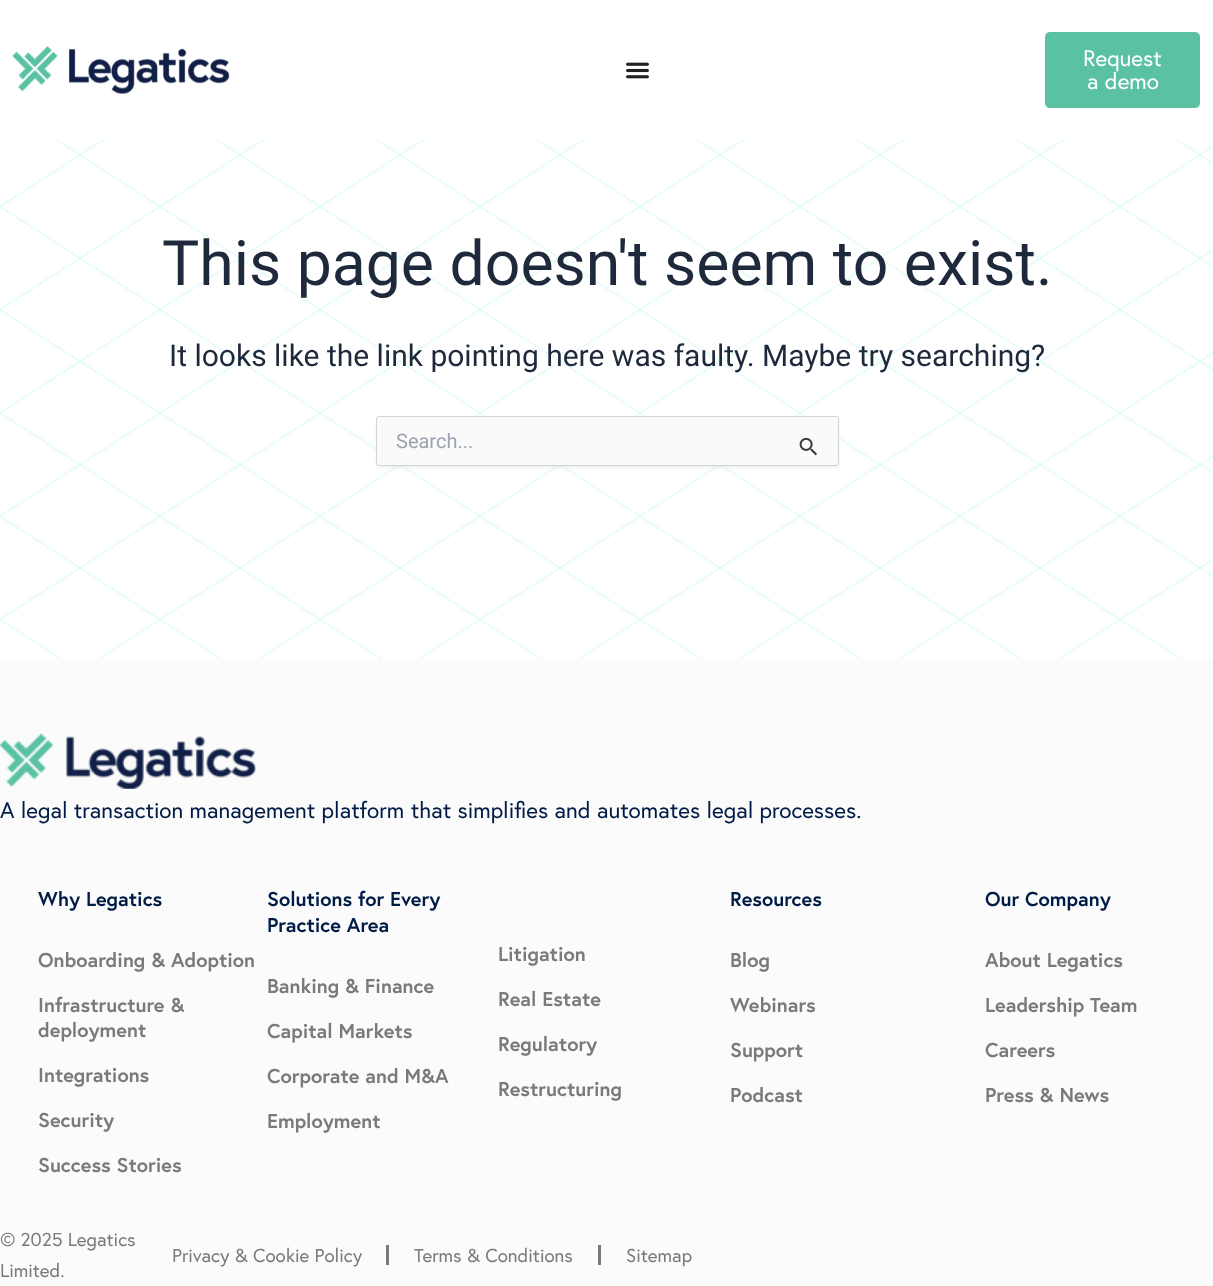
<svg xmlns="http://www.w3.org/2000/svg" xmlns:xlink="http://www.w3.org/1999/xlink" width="1213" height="1286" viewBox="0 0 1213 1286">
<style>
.cls-1{font:22.5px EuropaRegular;fill:#ffffff}
.cls-2{font:62.5px Roboto;fill:#1e293b}
.cls-3{font:30px Roboto;fill:#1e293b}
.cls-4{font:20px Roboto;fill:#9ca3af}
.cls-5{font:22.5px EuropaRegular;fill:#001c46}
.cls-6{font:bold 20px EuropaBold;fill:#001c46}
.cls-7{font:bold 20px EuropaBold;fill:#7a7a7a}
.cls-8{font:18.75px EuropaRegular;fill:#7a7a7a}
</style>
<rect width="100%" height="100%" fill="#ffffff"/>
<image xlink:href="image0.png" x="0" y="140" width="1213" height="519"/>
<image xlink:href="image1.png" x="12" y="46" width="218" height="48"/>
<image xlink:href="image2.png" x="626" y="62" width="23" height="17"/>
<rect fill="#5ac1a3" stroke="#ffffff" x="1044.5" y="31.5" width="156" height="77" rx="5.5"/>
<rect fill="#000000" fill-opacity="0.05" filter="blur(1px)" x="376" y="418" width="463" height="50" rx="2.5"/>
<rect fill="#fafafa" stroke="#d1d5db" x="376.5" y="416.5" width="462" height="49" rx="2"/>
<image xlink:href="image3.png" x="799" y="437" width="18" height="19"/>
<rect fill="#fbfbfb" x="0" y="659" width="1213" height="627"/>
<image xlink:href="image4.png" x="0" y="733" width="257" height="56"/>
<rect fill="#7a7a7a" x="386" y="1245" width="3" height="20"/>
<rect fill="#7a7a7a" x="598" y="1245" width="3" height="20"/>
<text class="cls-1" x="1083" y="66">Request</text>
<text class="cls-1" x="1087" y="89">a demo</text>
<text class="cls-2" x="162" y="285">This page doesn't seem to exist.</text>
<text class="cls-3" x="169" y="366">It looks like the link pointing here was faulty. Maybe try searching?</text>
<text class="cls-4" x="396" y="448">Search...</text>
<text class="cls-5" x="0" y="818">A legal transaction management platform that simplifies and automates legal processes.</text>
<text class="cls-6" x="38" y="906">Why Legatics</text>
<text class="cls-7" x="38" y="967">Onboarding &amp; Adoption</text>
<text class="cls-7"><tspan x="38" y="1012">Infrastructure &amp;</tspan><tspan x="38" y="1037">deployment</tspan></text>
<text class="cls-7" x="38" y="1082">Integrations</text>
<text class="cls-7" x="38" y="1127">Security</text>
<text class="cls-7" x="38" y="1172">Success Stories</text>
<text class="cls-6"><tspan x="267" y="906">Solutions for Every</tspan><tspan x="267" y="932">Practice Area</tspan></text>
<text class="cls-7" x="267" y="993">Banking &amp; Finance</text>
<text class="cls-7" x="267" y="1038">Capital Markets</text>
<text class="cls-7" x="267" y="1083">Corporate and M&amp;A</text>
<text class="cls-7" x="267" y="1128">Employment</text>
<text class="cls-7" x="498" y="961">Litigation</text>
<text class="cls-7" x="498" y="1006">Real Estate</text>
<text class="cls-7" x="498" y="1051">Regulatory</text>
<text class="cls-7" x="498" y="1096">Restructuring</text>
<text class="cls-6" x="730" y="906">Resources</text>
<text class="cls-7" x="730" y="967">Blog</text>
<text class="cls-7" x="730" y="1012">Webinars</text>
<text class="cls-7" x="730" y="1057">Support</text>
<text class="cls-7" x="730" y="1102">Podcast</text>
<text class="cls-6" x="985" y="906">Our Company</text>
<text class="cls-7" x="985" y="967">About Legatics</text>
<text class="cls-7" x="985" y="1012">Leadership Team</text>
<text class="cls-7" x="985" y="1057">Careers</text>
<text class="cls-7" x="985" y="1102">Press &amp; News</text>
<text class="cls-8"><tspan x="0" y="1246">© 2025 Legatics</tspan><tspan x="0" y="1277">Limited.</tspan></text>
<text class="cls-8" x="172" y="1262">Privacy &amp; Cookie Policy</text>
<text class="cls-8" x="414" y="1262">Terms &amp; Conditions</text>
<text class="cls-8" x="626" y="1262">Sitemap</text>
</svg>
